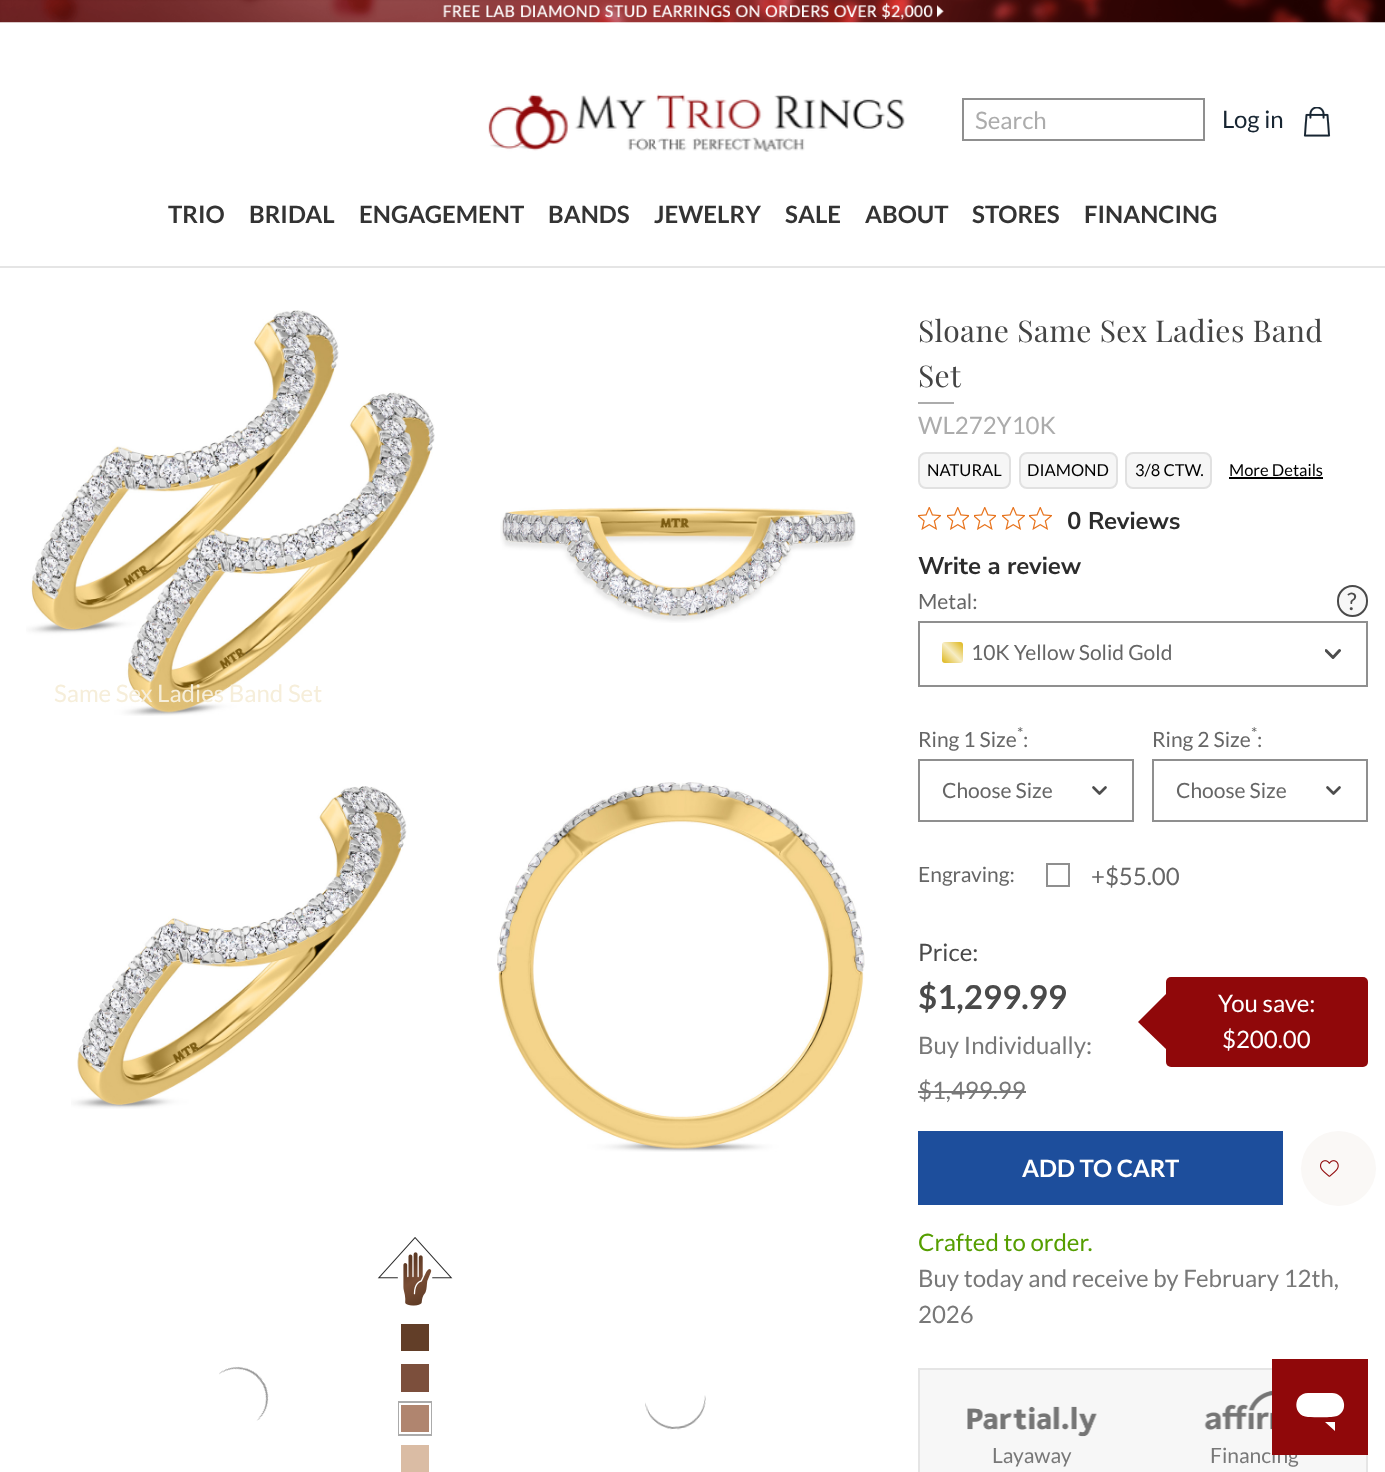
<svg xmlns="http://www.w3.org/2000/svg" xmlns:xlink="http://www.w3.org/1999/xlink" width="1385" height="1472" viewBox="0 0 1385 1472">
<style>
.cls-1{font:24px Lato;fill:#acacac}
.cls-2{font:24px Lato;fill:#172532}
.cls-3{font:bold 24px Lato;fill:#333333}
.cls-4{font:24px Lato;fill:#f6eeda}
.cls-5{font:30px Playfair Display;letter-spacing:0.4px;fill:#444444}
.cls-6{font:16.5px Lato;fill:#000000}
.cls-7{font:200 24px Nunito Sans;fill:#2c2c2c}
.cls-8{font:21px Lato;fill:#666666}
.cls-9{font:24px Lato;fill:#4a4a4a}
.cls-10{font:16px Lato;fill:#666666}
.cls-11{font:24px Lato;fill:#666666}
.cls-12{font:bold 33px Lato;fill:#4a4a4a}
.cls-13{font:24px Lato;fill:#787878}
.cls-14{font:24px Lato;fill:#ffffff}
.cls-15{font:bold 24px Lato;fill:#ffffff}
.cls-16{font:24px Lato;fill:#559e00}
.cls-17{font:21px Lato;fill:#787878}
</style>
<defs>
<linearGradient id="g1" gradientUnits="userSpaceOnUse" x1="942" y1="663" x2="963" y2="642"><stop offset="0" stop-color="#ffffff" stop-opacity="0"/><stop offset="0.5" stop-color="#ffffff" stop-opacity="0.75"/><stop offset="1" stop-color="#ffffff" stop-opacity="0"/></linearGradient>
<clipPath id="clip1"><rect x="1325" y="645" width="16" height="18"/></clipPath>
</defs>
<rect width="100%" height="100%" fill="#ffffff"/>
<image xlink:href="image0.png" x="0" y="0" width="1385" height="23"/>
<image xlink:href="image1.png" x="488" y="94" width="417" height="58"/>
<rect fill="none" stroke="#8f8f8f" stroke-width="2" x="963" y="99" width="241" height="41"/>
<image xlink:href="image2.png" x="1303" y="107" width="28" height="30"/>
<rect fill="#e5e5e5" x="0" y="266" width="1385" height="2"/>
<image xlink:href="image3.png" x="500" y="507" width="356" height="116"/>
<image xlink:href="image4.png" x="26" y="310" width="409" height="406"/>
<image xlink:href="image5.png" x="71" y="786" width="336" height="323"/>
<image xlink:href="image6.png" x="497" y="782" width="368" height="370"/>
<image xlink:href="image7.png" x="219" y="1366" width="50" height="55"/>
<image xlink:href="image8.png" x="377" y="1237" width="76" height="69"/>
<rect fill="#623e28" x="401" y="1324" width="28" height="27"/>
<rect fill="#7c4f3c" x="401" y="1364" width="28" height="28"/>
<rect fill="none" stroke="#ababab" stroke-width="2" x="399" y="1402" width="32" height="33"/>
<rect fill="#b0856f" stroke="#ffffff" stroke-width="2" x="400" y="1404" width="30" height="29"/>
<rect fill="#dabca4" x="401" y="1445" width="28" height="27"/>
<image xlink:href="image9.png" x="645" y="1395" width="61" height="35"/>
<rect fill="#acacac" x="918" y="402" width="36" height="2"/>
<rect fill="#f6f6f6" stroke="#e1e1e1" stroke-width="2" x="919" y="453" width="91" height="35" rx="7"/>
<rect fill="#f6f6f6" stroke="#e1e1e1" stroke-width="2" x="1020" y="453" width="97" height="35" rx="7"/>
<rect fill="#f6f6f6" stroke="#e1e1e1" stroke-width="2" x="1126" y="453" width="85" height="35" rx="7"/>
<rect fill="#000000" x="1229" y="477" width="94" height="2"/>
<image xlink:href="image10.png" x="918" y="507" width="23" height="23"/>
<image xlink:href="image11.png" x="947" y="507" width="22" height="23"/>
<image xlink:href="image11.png" x="974" y="507" width="22" height="23"/>
<image xlink:href="image10.png" x="1002" y="507" width="23" height="23"/>
<image xlink:href="image10.png" x="1029" y="507" width="23" height="23"/>
<rect fill="#f7f7f7" stroke="#4a4a4a" stroke-width="2" x="1338" y="586" width="29" height="30" rx="14.5"/>
<rect fill="none" stroke="#8f8f8f" stroke-width="2" x="919" y="622" width="448" height="64"/>
<rect fill="#ddb515" x="942" y="642" width="21" height="21" rx="3"/>
<rect fill="url(#g1)" x="942" y="642" width="21" height="21"/>
<g clip-path="url(#clip1)">
<path fill="none" stroke="#4d4d4d" stroke-width="3" stroke-linecap="round" stroke-linejoin="round" d="M1326 650.5L1333 657.5L1339.5 650.5"/>
</g>
<rect fill="none" stroke="#8f8f8f" stroke-width="2" x="919" y="760" width="214" height="61"/>
<path fill="none" stroke="#4d4d4d" stroke-width="2.7" stroke-linecap="round" stroke-linejoin="round" d="M1093.5 787.5L1099.5 793.5L1105.5 787.5"/>
<rect fill="none" stroke="#8f8f8f" stroke-width="2" x="1153" y="760" width="214" height="61"/>
<path fill="none" stroke="#4d4d4d" stroke-width="2.7" stroke-linecap="round" stroke-linejoin="round" d="M1327.5 787.5L1333.5 793.5L1339.5 787.5"/>
<rect fill="none" stroke="#8f8f8f" stroke-width="2" x="1047" y="864" width="22" height="22"/>
<rect fill="#787878" x="918" y="1091" width="108" height="2"/>
<rect fill="#90080a" x="1166" y="977" width="202" height="90" rx="5"/>
<path fill="#90080a" d="M1168 994H1166L1138 1022L1166 1049H1168Z"/>
<rect fill="#1d4e9c" x="918" y="1131" width="365" height="74"/>
<circle fill="#faf8f6" cx="1338.5" cy="1168.5" r="37.5"/>
<image xlink:href="image12.png" x="1320" y="1160" width="19" height="17"/>
<rect fill="#f7f7f7" stroke="#e5e5e5" stroke-width="2" x="919" y="1369" width="448" height="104"/>
<image xlink:href="image13.png" x="967" y="1406" width="130" height="31"/>
<image xlink:href="image14.png" x="1204" y="1390" width="68" height="40"/>
<text class="cls-1" x="975" y="129">Search</text>
<text class="cls-2" x="1222" y="128">Log in</text>
<text class="cls-3" x="168" y="223">TRIO</text>
<text class="cls-3" x="249" y="223">BRIDAL</text>
<text class="cls-3" x="359" y="223">ENGAGEMENT</text>
<text class="cls-3" x="548" y="223">BANDS</text>
<text class="cls-3" x="654" y="223">JEWELRY</text>
<text class="cls-3" x="785" y="223">SALE</text>
<text class="cls-3" x="865" y="223">ABOUT</text>
<text class="cls-3" x="972" y="223">STORES</text>
<text class="cls-3" x="1084" y="223">FINANCING</text>
<text class="cls-4" x="54" y="702">Same Sex Ladies Band Set</text>
<text class="cls-5"><tspan x="918" y="342">Sloane Same Sex Ladies Band</tspan><tspan x="918" y="387">Set</tspan></text>
<text class="cls-1" x="918" y="434">WL272Y10K</text>
<text class="cls-6" x="927" y="476">NATURAL</text>
<text class="cls-6" x="1027" y="476">DIAMOND</text>
<text class="cls-6" x="1135" y="476">3/8 CTW.</text>
<text class="cls-6" x="1229" y="476">More Details</text>
<text class="cls-7" x="1067" y="529">0 Reviews</text>
<text class="cls-7" x="918" y="574">Write a review</text>
<text class="cls-8" x="918" y="609">Metal:</text>
<text class="cls-9" x="1347" y="610">?</text>
<text class="cls-8" x="971" y="660">10K Yellow Solid Gold</text>
<text class="cls-10" x="1017" y="739">*</text>
<text class="cls-8" x="918" y="747">Ring 1 Size</text>
<text class="cls-8" x="1023" y="747">:</text>
<text class="cls-8" x="942" y="798">Choose Size</text>
<text class="cls-10" x="1251" y="739">*</text>
<text class="cls-8" x="1152" y="747">Ring 2 Size</text>
<text class="cls-8" x="1257" y="747">:</text>
<text class="cls-8" x="1176" y="798">Choose Size</text>
<text class="cls-8" x="918" y="882">Engraving:</text>
<text class="cls-11" x="1091" y="885">+$55.00</text>
<text class="cls-9" x="918" y="961">Price:</text>
<text class="cls-12" x="918" y="1009">$1,299.99</text>
<text class="cls-13"><tspan x="918" y="1054">Buy Individually:</tspan><tspan x="918" y="1099">$1,499.99</tspan></text>
<text class="cls-14" x="1218" y="1012">You save:</text>
<text class="cls-14" x="1222" y="1048">$200.00</text>
<text class="cls-15" x="1022" y="1177">ADD TO CART</text>
<text class="cls-16" x="918" y="1251">Crafted to order.</text>
<text class="cls-13"><tspan x="918" y="1287">Buy today and receive by February 12th,</tspan><tspan x="918" y="1323">2026</tspan></text>
<text class="cls-17" x="992" y="1463">Layaway</text>
<text class="cls-17" x="1210" y="1463">Financing</text>
<rect fill="#90080a" x="1272" y="1359" width="96" height="96"/>
<path fill="#ffffff" d="M1325 1422L1335 1431V1422ZM1308 1393C1293 1393 1292 1416 1308 1417C1314 1417 1332 1418 1337 1416C1349 1411 1345 1393 1332 1393Z"/>
</svg>
